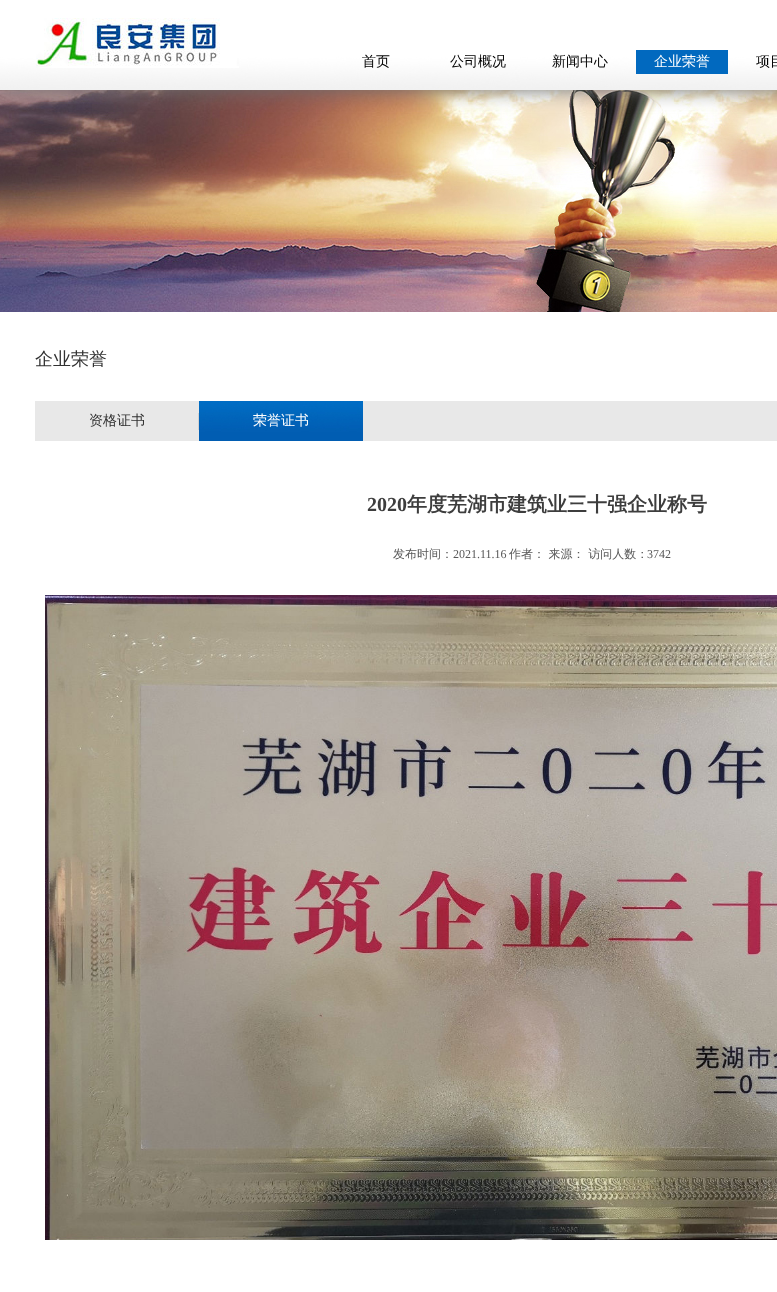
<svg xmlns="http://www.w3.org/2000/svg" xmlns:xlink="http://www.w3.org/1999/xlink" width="777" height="1292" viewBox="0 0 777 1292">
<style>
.cls-1{font:500 14px WenQuanYi Zen Hei;fill:#000000}
.cls-2{font:500 14px WenQuanYi Zen Hei;fill:#ffffff}
.cls-3{font:500 18px WenQuanYi Zen Hei;fill:#313131}
.cls-4{font:500 14px WenQuanYi Zen Hei;fill:#313131}
.cls-5{font:bold 20px Liberation Serif;fill:#3d3d3d}
.cls-6{font:bold 20px WenQuanYi Zen Hei;fill:#3d3d3d}
.cls-7{font:500 12px WenQuanYi Zen Hei;fill:#585858}
.cls-8{font:12px Liberation Serif;fill:#585858}
</style>
<rect width="100%" height="100%" fill="#ffffff"/>
<image xlink:href="image2.png" x="0" y="90" width="777" height="222"/>
<rect fill="#6e6e6e" filter="blur(10px)" x="0" y="0" width="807" height="90"/>
<image xlink:href="image0.png" x="0" y="0" width="777" height="90"/>
<image xlink:href="image1.png" x="36" y="18" width="203" height="50"/>
<rect fill="#0169bf" x="636" y="50" width="92" height="24"/>
<rect fill="#e8e8e8" x="35" y="401" width="742" height="40"/>
<rect fill="#d2d2d2" x="198" y="413" width="1" height="17"/>
<image xlink:href="image3.png" x="199" y="401" width="164" height="40"/>
<image xlink:href="image4.png" x="45" y="595" width="732" height="645"/>
<text class="cls-1" x="362" y="66">首页</text>
<text class="cls-1" x="450" y="66">公司概况</text>
<text class="cls-1" x="552" y="66">新闻中心</text>
<text class="cls-2" x="654" y="66">企业荣誉</text>
<text class="cls-1" x="756" y="66">项目</text>
<text class="cls-3" x="35" y="365">企业荣誉</text>
<text class="cls-4" x="89" y="425">资格证书</text>
<text class="cls-2" x="253" y="425">荣誉证书</text>
<text class="cls-5" x="367" y="511">2020</text>
<text class="cls-6" x="407" y="511">年度芜湖市建筑业三十强企业称号</text>
<text class="cls-7" x="393" y="558">发布时间：</text>
<text class="cls-8" x="453" y="558">2021.11.16</text>
<text class="cls-7" x="509" y="558">作者： 来源： 访问人数：</text>
<text class="cls-8" x="647" y="558">3742</text>
</svg>
